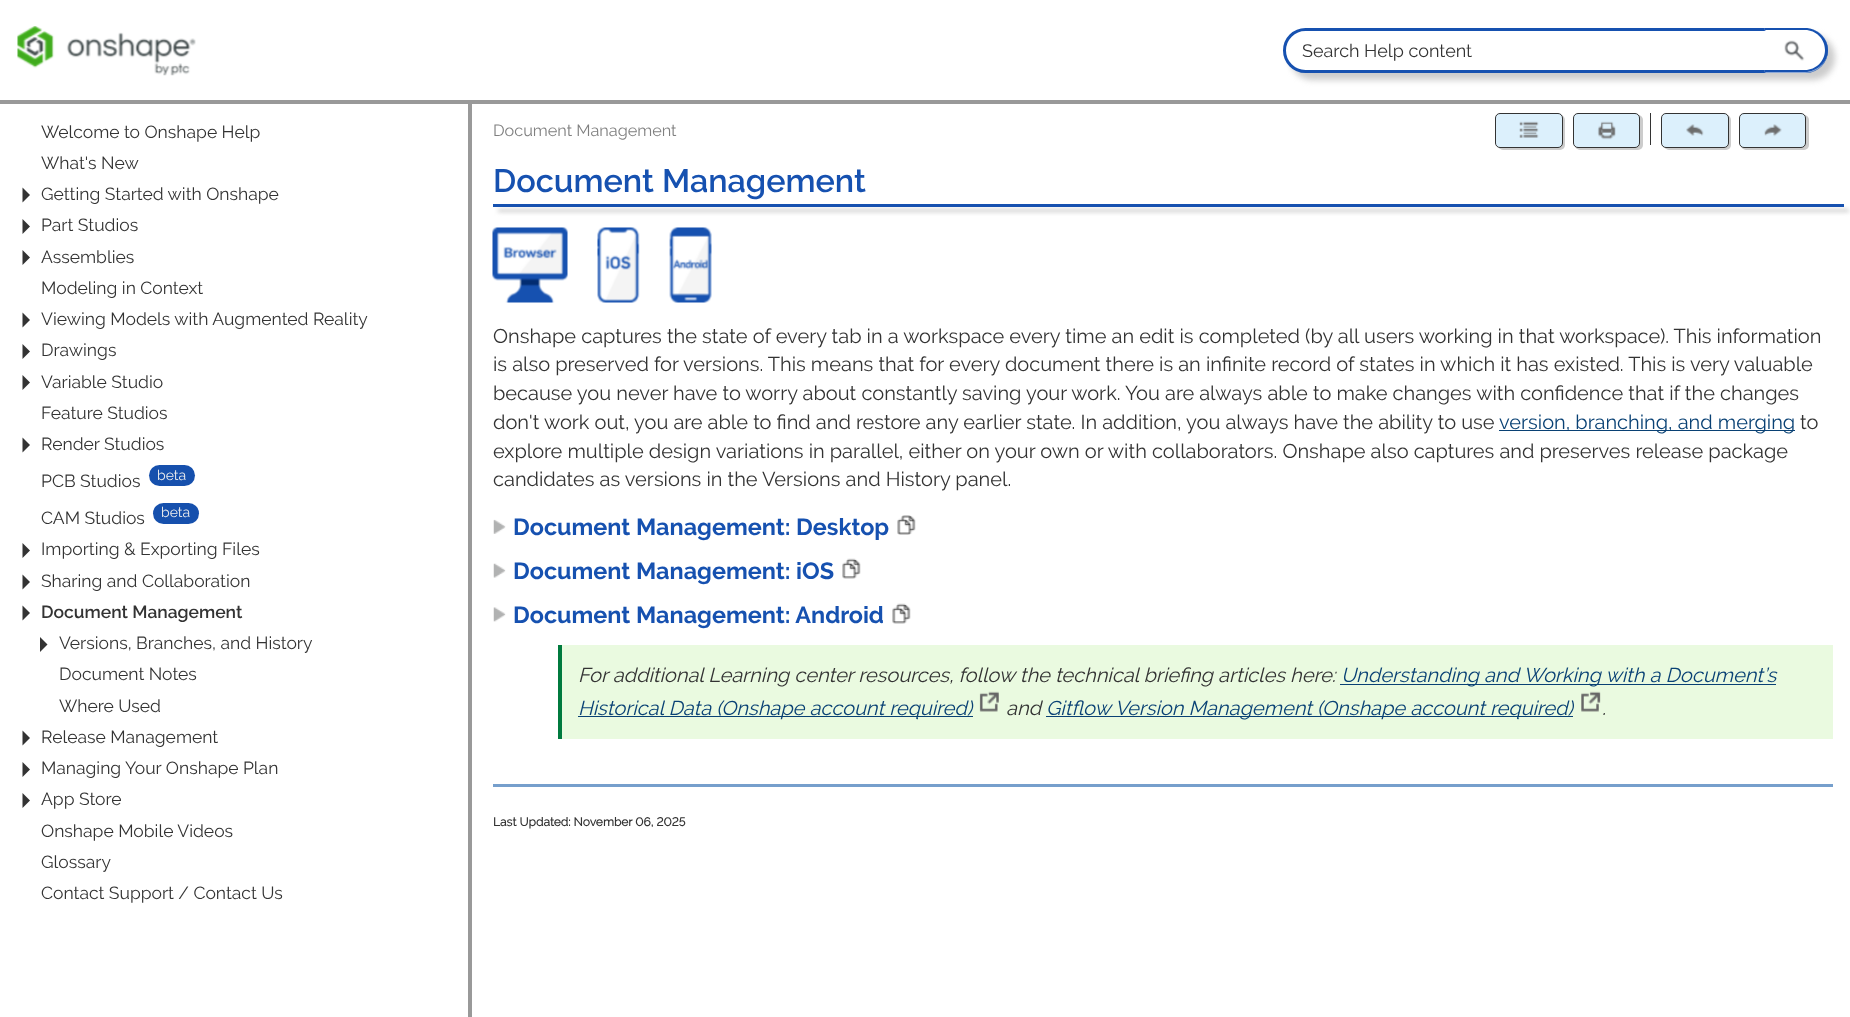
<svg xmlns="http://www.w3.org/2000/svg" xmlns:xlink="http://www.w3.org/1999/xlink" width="1850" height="1017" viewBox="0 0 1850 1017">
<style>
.cls-1{font:18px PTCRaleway;fill:#333333}
.cls-2{font:17.5px PTCRaleway;fill:#333333}
.cls-3{font:14px PTCRaleway;fill:#eeeeee}
.cls-4{font:600 17.5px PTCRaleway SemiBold;fill:#333333}
.cls-5{font:16.25px PTCRaleway;fill:#808080}
.cls-6{font:600 32.4px PTCRaleway SemiBold;fill:#1651b0}
.cls-7{font:20px PTCRaleway;fill:#333333}
.cls-8{font:20px PTCRaleway;fill:#094174}
.cls-9{font:bold 23.4px PTCRaleway;fill:#1651b0}
.cls-10{font:italic 20px PTCRaleway;fill:#333333}
.cls-11{font:italic 20px PTCRaleway;fill:#094174}
.cls-12{font:bold 12px 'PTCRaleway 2';fill:#333333}
</style>
<rect width="100%" height="100%" fill="#ffffff"/>
<rect fill="#999999" x="0" y="100" width="1850" height="4"/>
<image xlink:href="image0.png" x="17" y="26" width="179" height="50"/>
<rect fill="#cccccc" filter="blur(3px)" x="1290" y="35" width="545" height="45" rx="22.5"/>
<rect fill="#ffffff" stroke="#1651b0" stroke-width="3" x="1284.5" y="29.5" width="542" height="42" rx="21"/>
<image xlink:href="image1.png" x="1764" y="28" width="64" height="45"/>
<path fill="#1651b0" fill-rule="evenodd" d="M1765 28H1805C1817 28 1828 38 1828 50C1828 62 1817 72 1805 72H1765ZM1765 30H1805C1816 30 1825 39 1825 50C1825 61 1816 70 1805 70H1765Z"/>
<path fill="#333333" d="M22.5 202.5V187.5L30 195Z"/>
<path fill="#333333" d="M22.5 234V219L30 226.5Z"/>
<path fill="#333333" d="M22.5 265V250L30 257.5Z"/>
<path fill="#333333" d="M22.5 327.5V312.5L30 320Z"/>
<path fill="#333333" d="M22.5 359V344L30 351.5Z"/>
<path fill="#333333" d="M22.5 390V375L30 382.5Z"/>
<path fill="#333333" d="M22.5 452.5V437.5L30 445Z"/>
<rect fill="#1650ad" x="149" y="465" width="46" height="21" rx="10.5"/>
<rect fill="#1650ad" x="153" y="503" width="46" height="21" rx="10.5"/>
<path fill="#333333" d="M22.5 558V543L30 550.5Z"/>
<path fill="#333333" d="M22.5 589.5V574.5L30 582Z"/>
<path fill="#333333" d="M22.5 620.5V605.5L30 613Z"/>
<path fill="#333333" d="M40 652V637L47.5 644.5Z"/>
<path fill="#333333" d="M22.5 745.5V730.5L30 738Z"/>
<path fill="#333333" d="M22.5 777V762L30 769.5Z"/>
<path fill="#333333" d="M22.5 808V793L30 800.5Z"/>
<rect fill="#999999" x="468" y="104" width="4" height="913"/>
<rect fill="#cccccc" filter="blur(0.5px)" x="1498" y="115" width="67" height="35" rx="5"/>
<rect fill="#dcf0fc" stroke="#333333" x="1495.5" y="113.5" width="67" height="34" rx="4.5"/>
<image xlink:href="image2.png" x="1519" y="121" width="20" height="17"/>
<rect fill="#cccccc" filter="blur(0.5px)" x="1575" y="115" width="68" height="35" rx="5"/>
<rect fill="#dcf0fc" stroke="#333333" x="1573.5" y="113.5" width="66" height="34" rx="4.5"/>
<image xlink:href="image3.png" x="1597" y="121" width="19" height="19"/>
<rect fill="#333333" x="1650" y="113" width="1" height="32"/>
<rect fill="#cccccc" filter="blur(0.5px)" x="1664" y="115" width="67" height="35" rx="5"/>
<rect fill="#dcf0fc" stroke="#333333" x="1661.5" y="113.5" width="67" height="34" rx="4.5"/>
<image xlink:href="image4.png" x="1686" y="124" width="18" height="12"/>
<rect fill="#cccccc" filter="blur(0.5px)" x="1741" y="115" width="68" height="35" rx="5"/>
<rect fill="#dcf0fc" stroke="#333333" x="1739.5" y="113.5" width="66" height="34" rx="4.5"/>
<image xlink:href="image5.png" x="1764" y="124" width="18" height="13"/>
<rect fill="#cccccc" filter="blur(2px)" x="498" y="209" width="1351" height="3"/>
<rect fill="#1651b0" x="493" y="204" width="1351" height="3"/>
<image xlink:href="image6.png" x="492" y="227" width="76" height="76"/>
<image xlink:href="image7.png" x="597" y="227" width="43" height="76"/>
<image xlink:href="image8.png" x="669" y="227" width="43" height="76"/>
<rect fill="#094174" x="1499" y="430" width="296" height="1"/>
<image xlink:href="image9.png" x="493" y="519" width="13" height="15"/>
<image xlink:href="image10.png" x="897" y="515" width="19" height="20"/>
<image xlink:href="image11.png" x="493" y="563" width="13" height="15"/>
<image xlink:href="image12.png" x="842" y="558" width="19" height="21"/>
<image xlink:href="image13.png" x="493" y="607" width="13" height="15"/>
<image xlink:href="image12.png" x="892" y="603" width="19" height="21"/>
<rect fill="#eafae0" x="562" y="645" width="1271" height="94"/>
<rect fill="#007a3e" x="558" y="645" width="4" height="94"/>
<rect fill="#094174" x="1340" y="684" width="436" height="1"/>
<rect fill="#094174" x="578" y="716" width="395" height="1"/>
<image xlink:href="image14.png" x="979" y="691" width="20" height="21"/>
<rect fill="#094174" x="1046" y="716" width="527" height="1"/>
<image xlink:href="image15.png" x="1581" y="691" width="20" height="21"/>
<rect fill="#769fcc" x="493" y="784" width="1340" height="3"/>
<text class="cls-1" x="1302" y="57">Search Help content</text>
<text class="cls-2"><tspan x="41" y="138">Welcome to Onshape Help</tspan><tspan x="41" y="169">What's New</tspan><tspan x="41" y="200">Getting Started with Onshape</tspan><tspan x="41" y="231">Part Studios</tspan><tspan x="41" y="263">Assemblies</tspan><tspan x="41" y="294">Modeling in Context</tspan><tspan x="41" y="325">Viewing Models with Augmented Reality</tspan><tspan x="41" y="356">Drawings</tspan><tspan x="41" y="388">Variable Studio</tspan><tspan x="41" y="419">Feature Studios</tspan><tspan x="41" y="450">Render Studios</tspan></text>
<text class="cls-2" x="41" y="487">PCB Studios</text>
<text class="cls-3" x="157" y="480">beta</text>
<text class="cls-2" x="41" y="524">CAM Studios</text>
<text class="cls-3" x="161" y="517">beta</text>
<text class="cls-2"><tspan x="41" y="555">Importing &amp; Exporting Files</tspan><tspan x="41" y="587">Sharing and Collaboration</tspan></text>
<text class="cls-4" x="41" y="618">Document Management</text>
<text class="cls-2"><tspan x="59" y="649">Versions, Branches, and History</tspan><tspan x="59" y="680">Document Notes</tspan><tspan x="59" y="712">Where Used</tspan></text>
<text class="cls-2"><tspan x="41" y="743">Release Management</tspan><tspan x="41" y="774">Managing Your Onshape Plan</tspan><tspan x="41" y="805">App Store</tspan><tspan x="41" y="837">Onshape Mobile Videos</tspan><tspan x="41" y="868">Glossary</tspan><tspan x="41" y="899">Contact Support / Contact Us</tspan></text>
<text class="cls-5" x="493" y="136">Document Management</text>
<text class="cls-6" x="493" y="192">Document Management</text>
<text class="cls-7"><tspan x="493" y="343">Onshape captures the state of every tab in a workspace every time an edit is completed (by all users working in that workspace). This information</tspan><tspan x="493" y="371">is also preserved for versions. This means that for every document there is an infinite record of states in which it has existed. This is very valuable</tspan><tspan x="493" y="400">because you never have to worry about constantly saving your work. You are always able to make changes with confidence that if the changes</tspan><tspan x="493" y="429">don't work out, you are able to find and restore any earlier state. In addition, you always have the ability to use</tspan></text>
<text class="cls-8" x="1499" y="429">version, branching, and merging</text>
<text class="cls-7" x="1800" y="429">to</text>
<text class="cls-7"><tspan x="493" y="458">explore multiple design variations in parallel, either on your own or with collaborators. Onshape also captures and preserves release package</tspan><tspan x="493" y="486">candidates as versions in the Versions and History panel.</tspan></text>
<text class="cls-9"><tspan x="513" y="535">Document Management: Desktop</tspan><tspan x="513" y="579">Document Management: iOS</tspan><tspan x="513" y="623">Document Management: Android</tspan></text>
<text class="cls-10" x="578" y="682">For additional Learning center resources, follow the technical briefing articles here:</text>
<text class="cls-11" x="1341" y="682">Understanding and Working with a Document’s</text>
<text class="cls-11" x="578" y="715">Historical Data (Onshape account required)</text>
<text class="cls-10" x="1006" y="715">and</text>
<text class="cls-11" x="1046" y="715">Gitflow Version Management (Onshape account required)</text>
<text class="cls-10" x="1602" y="715">.</text>
<text class="cls-12" x="493" y="826">Last Updated: November 06, 2025</text>
</svg>
